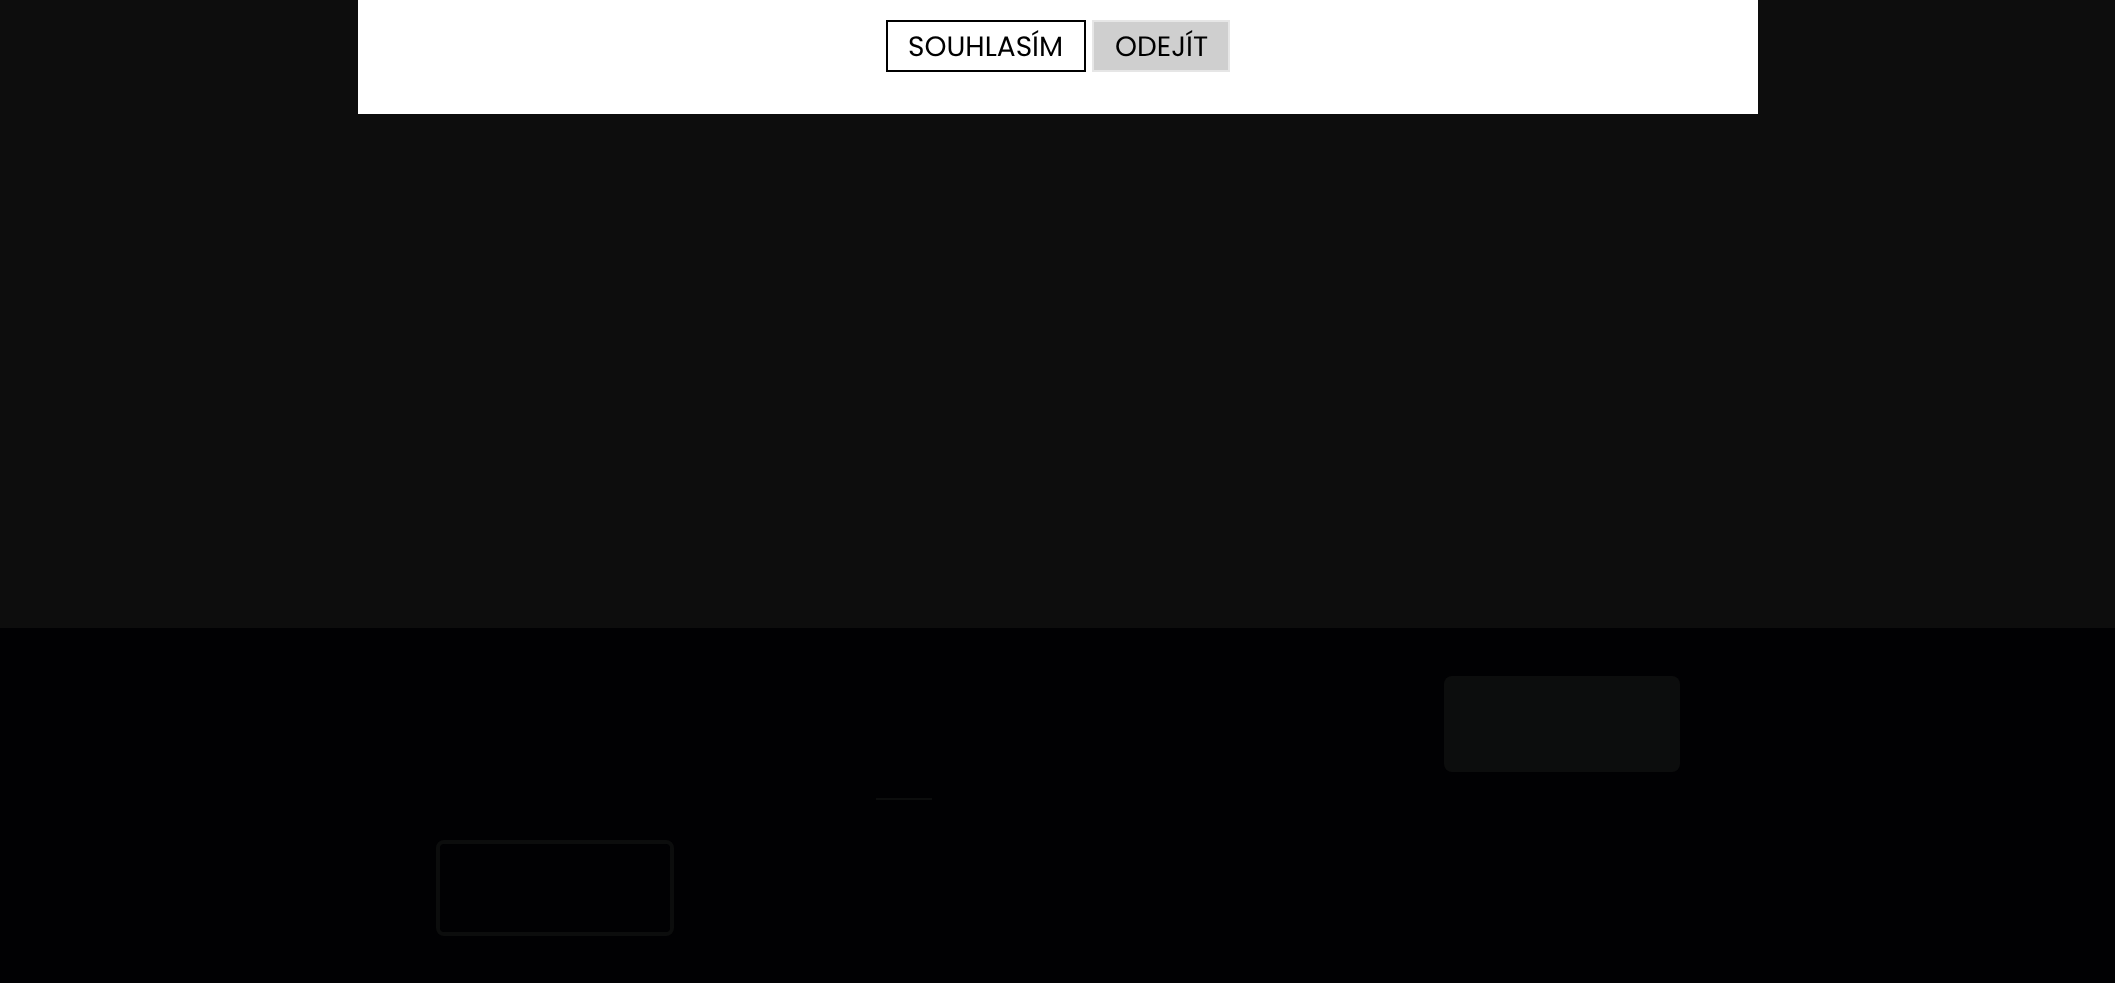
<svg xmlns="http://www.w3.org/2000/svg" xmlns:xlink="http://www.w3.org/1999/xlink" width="2115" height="983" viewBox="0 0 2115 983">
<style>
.cls-1{font:28px Poppins;fill:#000000}
</style>
<rect width="100%" height="100%" fill="#0d0d0d"/>
<rect fill="#ffffff" x="358" y="0" width="1400" height="114"/>
<rect fill="none" stroke="#000000" stroke-width="2" x="887" y="21" width="198" height="50"/>
<rect fill="#cfcfcf" stroke="#e6e6e6" stroke-width="2" x="1093" y="21" width="136" height="50"/>
<rect fill="#010103" x="0" y="628" width="2115" height="355"/>
<rect fill="#0c0d0d" x="1444" y="676" width="236" height="96" rx="8"/>
<rect fill="#0c0d0d" x="876" y="798" width="56" height="2"/>
<rect fill="none" stroke="#0c0d0d" stroke-width="4" x="438" y="842" width="234" height="92" rx="6"/>
<text class="cls-1" x="908" y="56">SOUHLASÍM</text>
<text class="cls-1" x="1115" y="56">ODEJÍT</text>
</svg>
